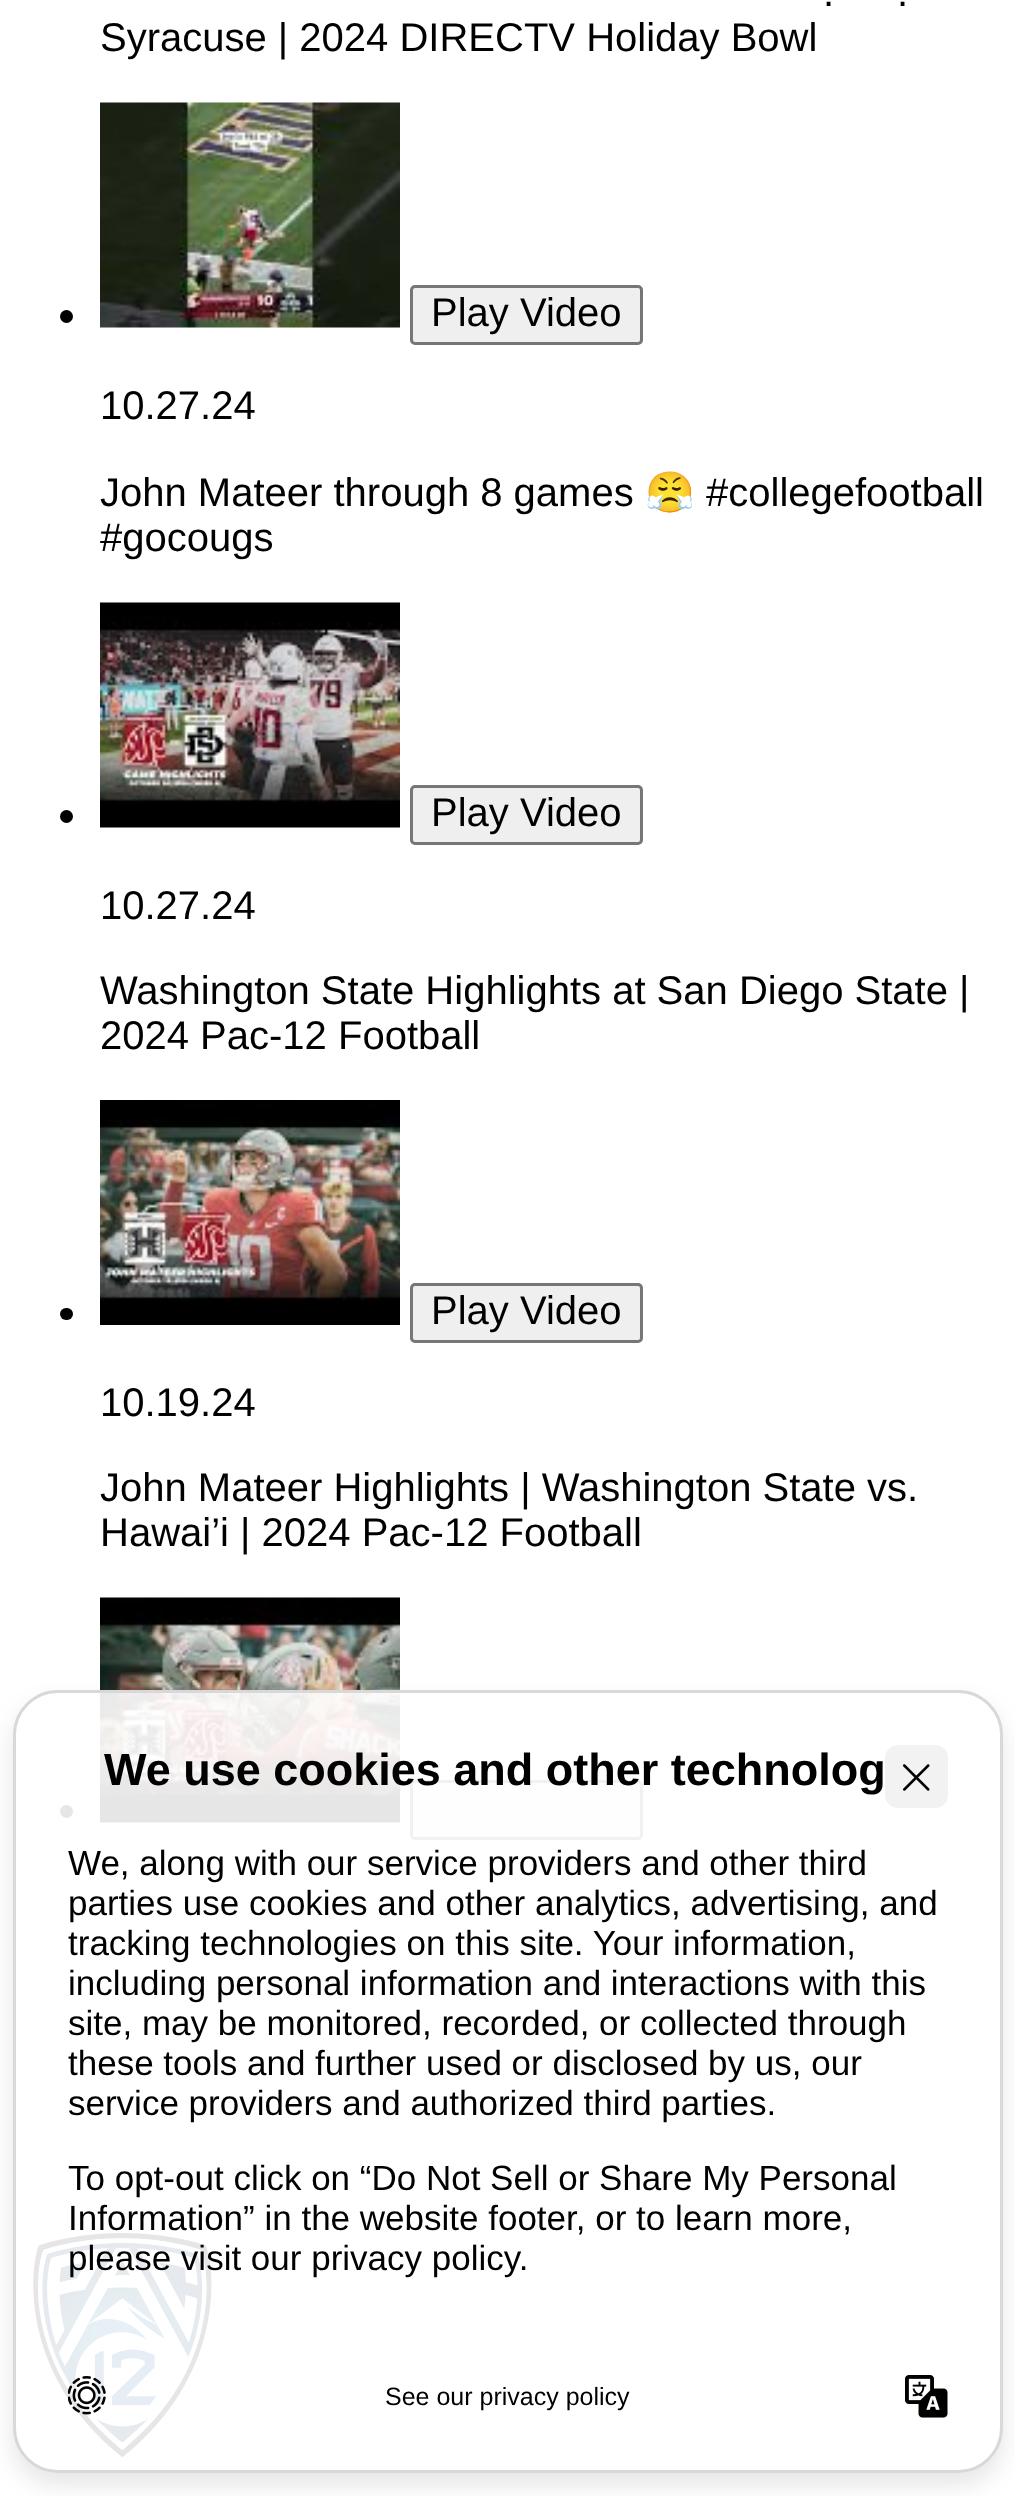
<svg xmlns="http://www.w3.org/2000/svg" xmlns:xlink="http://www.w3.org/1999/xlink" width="1015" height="2496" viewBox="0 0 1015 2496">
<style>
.cls-1{font:40px Liberation Sans;fill:#000000}
.cls-2{font:40px Noto Color Emoji;fill:#000000}
.cls-3{font:bold 45px Liberation Sans;fill:#000000}
.cls-4{font:35px Liberation Sans;fill:#000000}
.cls-5{font:25px Liberation Sans;fill:#000000}
</style>
<defs>
<clipPath id="clip1"><path d="M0 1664H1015V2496H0ZM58 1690H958C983 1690 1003 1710 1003 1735V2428C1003 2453 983 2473 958 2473H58C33 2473 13 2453 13 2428V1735C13 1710 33 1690 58 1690Z" clip-rule="evenodd"/></clipPath>
</defs>
<rect width="100%" height="100%" fill="#ffffff"/>
<circle fill="#000000" cx="66.5" cy="316.5" r="6.5"/>
<image xlink:href="image0.png" x="100" y="102" width="300" height="226"/>
<rect fill="#efefef" stroke="#767676" stroke-width="3" x="411.5" y="286.5" width="230" height="57" rx="3.5"/>
<circle fill="#000000" cx="66.5" cy="816.5" r="6.5"/>
<image xlink:href="image1.png" x="100" y="602" width="300" height="226"/>
<rect fill="#efefef" stroke="#767676" stroke-width="3" x="411.5" y="786.5" width="230" height="57" rx="3.5"/>
<rect fill="#000000" x="60" y="1308" width="13" height="12" rx="6"/>
<image xlink:href="image2.png" x="100" y="1100" width="300" height="225"/>
<rect fill="#efefef" stroke="#767676" stroke-width="3" x="411.5" y="1284.5" width="230" height="57" rx="3.5"/>
<circle fill="#000000" cx="66.5" cy="1811.5" r="6.5"/>
<image xlink:href="image3.png" x="100" y="1597" width="300" height="226"/>
<rect fill="#efefef" stroke="#767676" stroke-width="3" x="411.5" y="1781.5" width="230" height="57" rx="3.5"/>
<image xlink:href="image4.png" x="33" y="2233" width="179" height="225"/>
<g clip-path="url(#clip1)">
<rect fill="#000000" fill-opacity="0.1" filter="blur(12.5px)" x="13" y="1703" width="990" height="782" rx="45"/>
</g>
<rect fill="#ffffff" fill-opacity="0.9" stroke="#d8d8d8" stroke-width="3" x="14.5" y="1691.5" width="987" height="780" rx="43.5"/>
<rect fill="#f2f2f2" x="885" y="1745" width="63" height="63" rx="13"/>
<image xlink:href="image5.png" x="903" y="1764" width="27" height="27"/>
<image xlink:href="image6.png" x="68" y="2376" width="38" height="39"/>
<image xlink:href="image7.png" x="905" y="2375" width="43" height="43"/>
<text class="cls-1" x="823" y="6">.</text>
<text class="cls-1" x="897" y="6">.</text>
<text class="cls-1" x="100" y="51">Syracuse | 2024 DIRECTV Holiday Bowl</text>
<text class="cls-1" x="431" y="326">Play Video</text>
<text class="cls-1" x="100" y="419">10.27.24</text>
<text class="cls-1" x="100" y="506">John Mateer through 8 games</text>
<text class="cls-2" x="645" y="506">😤</text>
<text class="cls-1" x="706" y="506">#collegefootball</text>
<text class="cls-1" x="100" y="551">#gocougs</text>
<text class="cls-1" x="431" y="826">Play Video</text>
<text class="cls-1" x="100" y="919">10.27.24</text>
<text class="cls-1"><tspan x="100" y="1004">Washington State Highlights at San Diego State |</tspan><tspan x="100" y="1049">2024 Pac-12 Football</tspan></text>
<text class="cls-1" x="431" y="1324">Play Video</text>
<text class="cls-1" x="100" y="1416">10.19.24</text>
<text class="cls-1"><tspan x="100" y="1501">John Mateer Highlights | Washington State vs.</tspan><tspan x="100" y="1546">Hawai’i | 2024 Pac-12 Football</tspan></text>
<text class="cls-3" x="104" y="1785">We use cookies and other technolog</text>
<text class="cls-4"><tspan x="68" y="1875">We, along with our service providers and other third</tspan><tspan x="68" y="1915">parties use cookies and other analytics, advertising, and</tspan><tspan x="68" y="1955">tracking technologies on this site. Your information,</tspan><tspan x="68" y="1995">including personal information and interactions with this</tspan><tspan x="68" y="2035">site, may be monitored, recorded, or collected through</tspan><tspan x="68" y="2075">these tools and further used or disclosed by us, our</tspan><tspan x="68" y="2115">service providers and authorized third parties.</tspan></text>
<text class="cls-4"><tspan x="68" y="2190">To opt-out click on “Do Not Sell or Share My Personal</tspan><tspan x="68" y="2230">Information” in the website footer, or to learn more,</tspan><tspan x="68" y="2270">please visit our privacy policy.</tspan></text>
<text class="cls-5" x="385" y="2405">See our privacy policy</text>
</svg>
